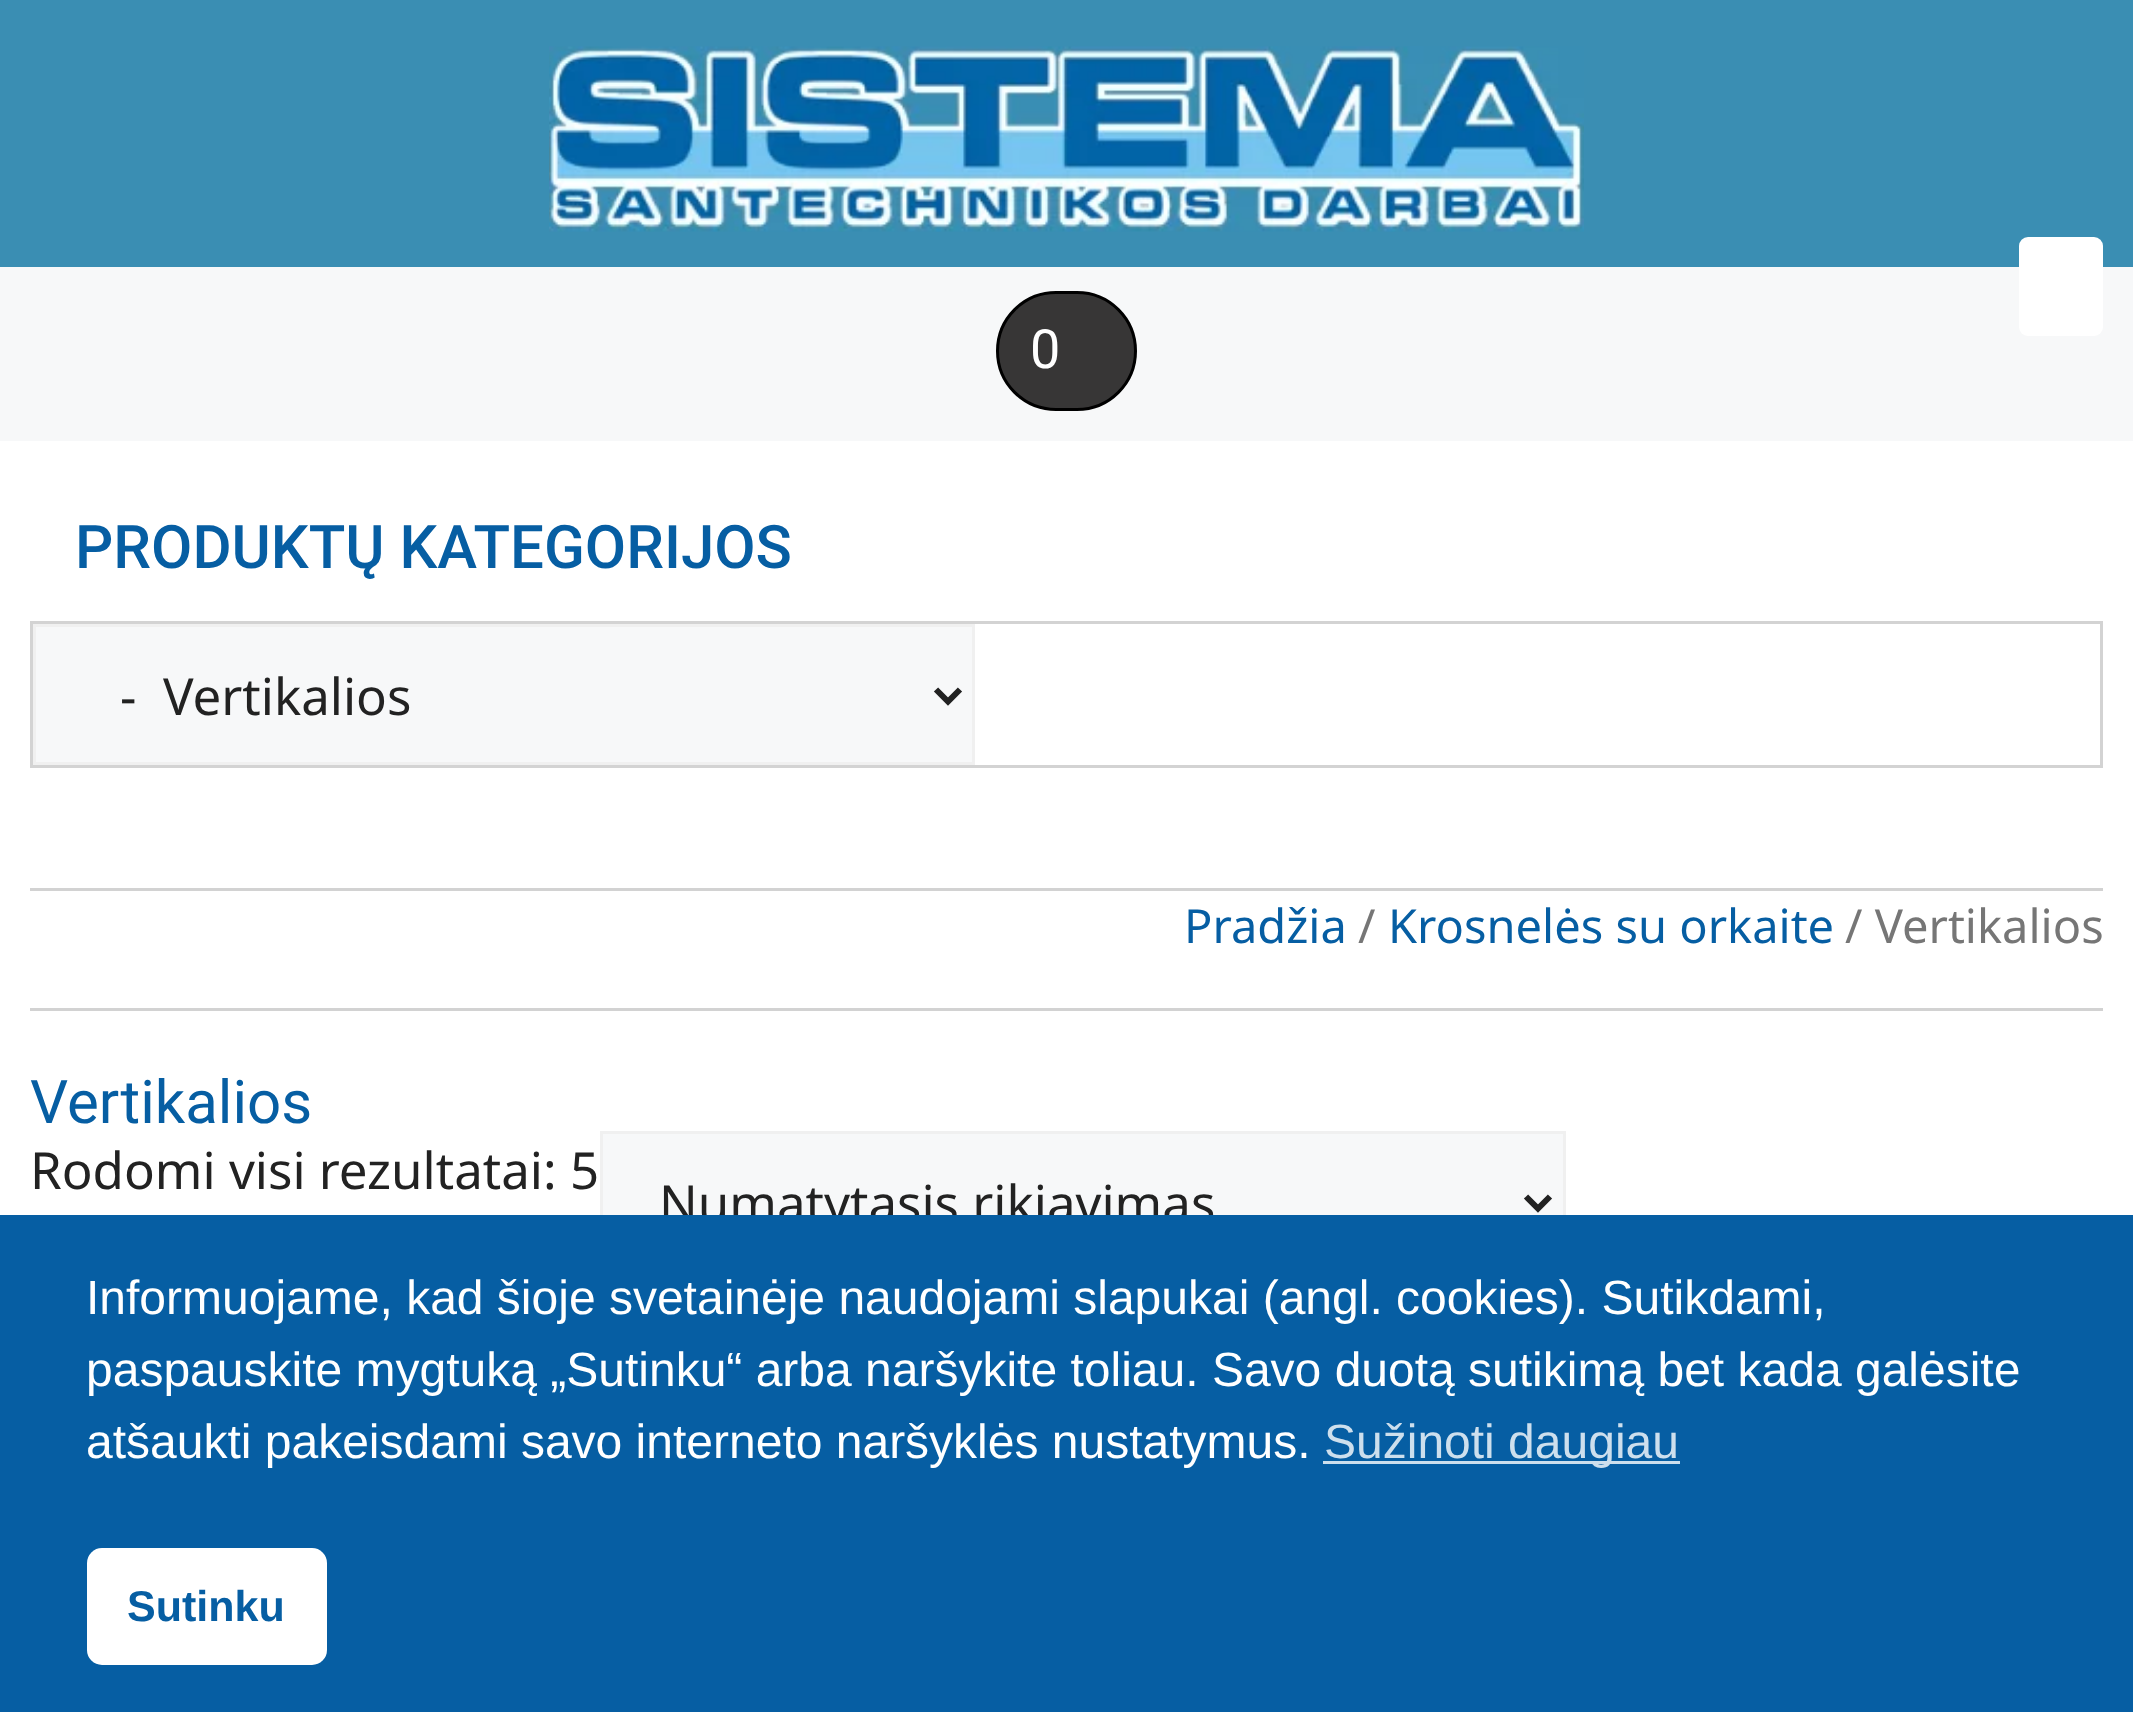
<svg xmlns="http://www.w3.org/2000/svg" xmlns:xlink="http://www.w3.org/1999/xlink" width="2133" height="1712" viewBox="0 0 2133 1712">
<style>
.cls-1{font:54px Roboto;fill:#ffffff}
.cls-2{font:500 60px Roboto;fill:#065ea3}
.cls-3{font:51px Noto Sans;fill:#222222}
.cls-4{font:47px Noto Sans;fill:#065ea3}
.cls-5{font:47px Noto Sans;fill:#767676}
.cls-6{font:60px Roboto;fill:#065ea3}
.cls-7{font:48px Liberation Sans;fill:#ffffff}
.cls-8{font:48px Liberation Sans;fill:#cddfed}
.cls-9{font:bold 43px Liberation Sans;fill:#065ea3}
</style>
<rect width="100%" height="100%" fill="#f7f8f9"/>
<rect fill="#3a8eb3" x="0" y="0" width="2133" height="267"/>
<image xlink:href="image0.png" x="549" y="46" width="1035" height="186"/>
<rect fill="#ffffff" x="2019" y="237" width="84" height="99" rx="9"/>
<rect fill="#373636" stroke="#000000" stroke-width="3" x="997.5" y="292.5" width="138" height="117" rx="58.5"/>
<rect fill="#ffffff" x="0" y="441" width="2133" height="774"/>
<rect fill="none" stroke="#d3d3d3" stroke-width="3" x="31.5" y="622.5" width="2070" height="144"/>
<rect fill="#f7f8f9" stroke="#f0f0f0" stroke-width="3" x="34.5" y="625.5" width="939" height="138"/>
<path fill="none" stroke="#222222" stroke-width="6" d="M936 689.5L948 701.5L960 689.5"/>
<rect fill="#d2d2d2" x="30" y="888" width="2073" height="3"/>
<rect fill="#d2d2d2" x="30" y="1008" width="2073" height="3"/>
<rect fill="#f7f8f9" x="603" y="1134" width="960" height="81"/>
<rect fill="none" stroke="#f0f0f0" stroke-width="3" x="601.5" y="1132.5" width="963" height="138"/>
<path fill="none" stroke="#222222" stroke-width="6" d="M1526 1196.5L1538 1208.5L1550 1196.5"/>
<text class="cls-1" x="1030" y="368">0</text>
<text class="cls-2" x="75" y="568">PRODUKTŲ KATEGORIJOS</text>
<text class="cls-3" xml:space="preserve" x="120" y="715">-  Vertikalios</text>
<text class="cls-4" x="1184" y="943">Pradžia</text>
<text class="cls-5" x="1358" y="943">/</text>
<text class="cls-4" x="1388" y="943">Krosnelės su orkaite</text>
<text class="cls-5" x="1845" y="943">/ Vertikalios</text>
<text class="cls-6" x="30" y="1123">Vertikalios</text>
<text class="cls-3" x="30" y="1189">Rodomi visi rezultatai: 5</text>
<text class="cls-3" x="659" y="1222">Numatytasis rikiavimas</text>
<rect fill="#065ea3" x="0" y="1215" width="2133" height="497"/>
<text class="cls-7"><tspan x="86" y="1314">Informuojame, kad šioje svetainėje naudojami slapukai (angl. cookies). Sutikdami,</tspan><tspan x="86" y="1386">paspauskite mygtuką „Sutinku“ arba naršykite toliau. Savo duotą sutikimą bet kada galėsite</tspan><tspan x="86" y="1458">atšaukti pakeisdami savo interneto naršyklės nustatymus.</tspan></text>
<rect fill="#cddfed" x="1323" y="1461" width="357" height="3"/>
<text class="cls-8" x="1324" y="1458">Sužinoti daugiau</text>
<rect fill="#ffffff" x="87" y="1548" width="240" height="117" rx="15"/>
<text class="cls-9" x="127" y="1621">Sutinku</text>
</svg>
